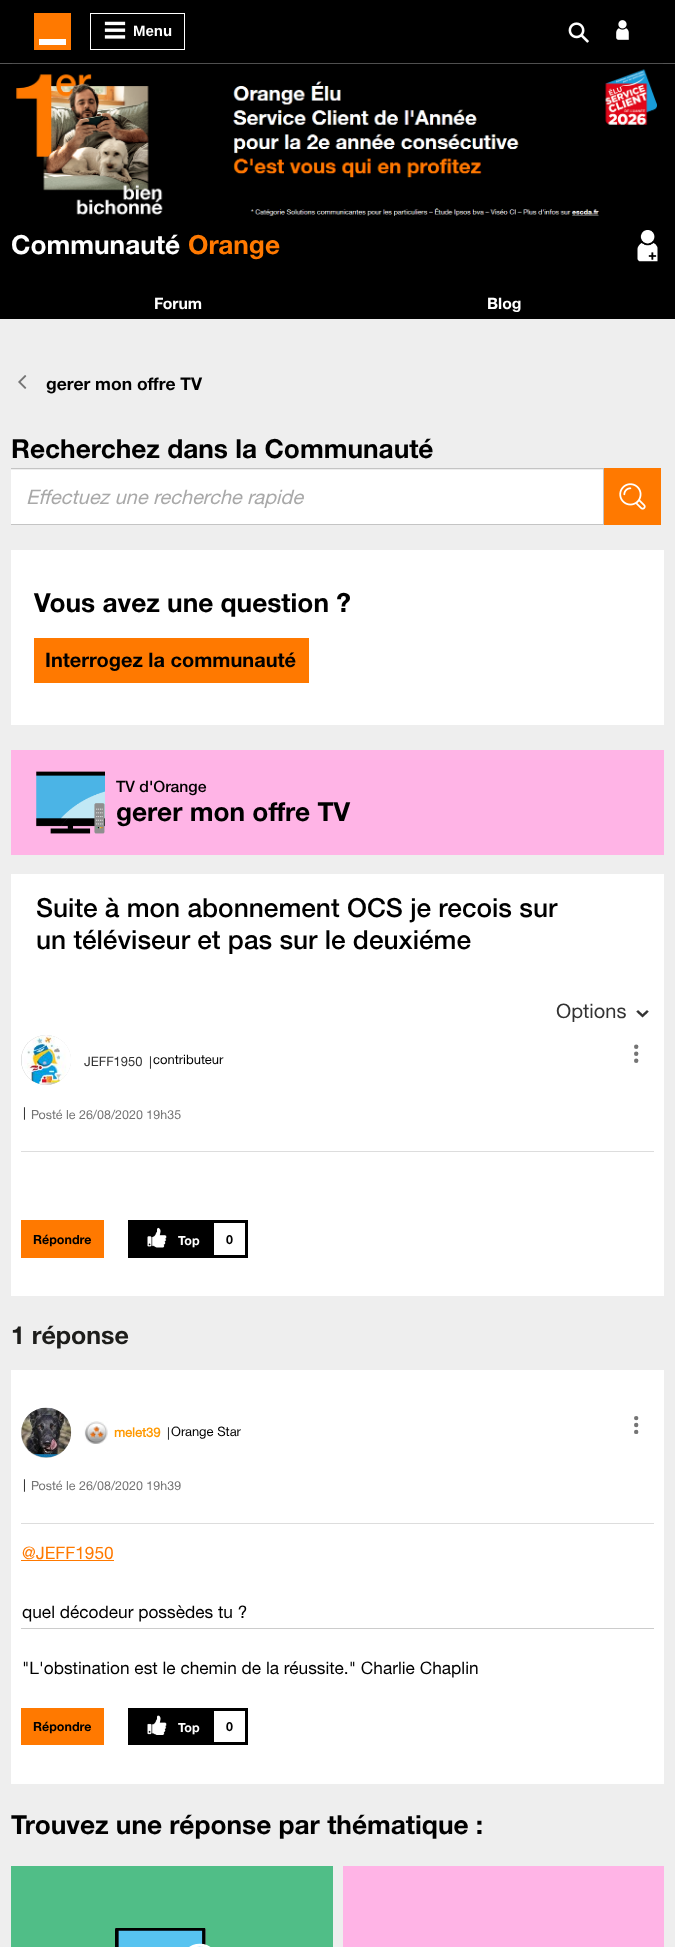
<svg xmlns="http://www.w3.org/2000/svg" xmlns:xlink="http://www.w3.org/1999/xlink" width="675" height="1947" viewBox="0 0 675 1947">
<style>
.cls-1{font:bold 15px Liberation Sans;fill:#ffffff}
.cls-2{font:bold 26.25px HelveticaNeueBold;fill:#ffffff}
.cls-3{font:bold 26.25px HelveticaNeueBold;fill:#ff7900}
.cls-4{font:bold 15.75px HelveticaNeueBold;fill:#ffffff}
.cls-5{font:bold 17.5px HelveticaNeueBold;fill:#000000}
.cls-6{font:bold 26.25px HelveticaNeueBold;fill:#000000}
.cls-7{font:italic 20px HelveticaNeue;fill:#a9a9a9}
.cls-8{font:bold 20px HelveticaNeueBold;fill:#000000}
.cls-9{font:500 15.75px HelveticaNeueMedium;fill:#000000}
.cls-10{font:500 26.25px HelveticaNeueMedium;fill:#000000}
.cls-11{font:20px HelveticaNeue;fill:#333333}
.cls-12{font:13px HelveticaNeue;fill:#333333}
.cls-13{font:12.5px HelveticaNeue;fill:#000000}
.cls-14{font:13px HelveticaNeue;fill:#000000}
.cls-15{font:12.5px HelveticaNeue;fill:#747474}
.cls-16{font:bold 12.5px HelveticaNeueBold;fill:#000000}
.cls-17{font:bold 12.5px HelveticaNeueBold;fill:#ffffff}
.cls-18{font:bold 25px HelveticaNeueBold;fill:#1d1d1b}
.cls-19{font:bold 13px HelveticaNeue;fill:#ff9900}
.cls-20{font:17.3px HelveticaNeue;fill:#ff7900}
.cls-21{font:17.3px HelveticaNeue;fill:#000000}
</style>
<rect width="100%" height="100%" fill="#eeeeee"/>
<rect fill="#000000" x="0" y="0" width="675" height="63"/>
<rect fill="#ff7900" x="34" y="13" width="37" height="37"/>
<rect fill="#ffffff" x="39" y="39" width="27" height="6"/>
<rect fill="none" stroke="#ffffff" x="90.5" y="13.5" width="94" height="36"/>
<image xlink:href="image0.png" x="104" y="21" width="22" height="18"/>
<image xlink:href="image1.png" x="568" y="22" width="21" height="21"/>
<image xlink:href="image2.png" x="616" y="20" width="13" height="20"/>
<rect fill="#555555" x="0" y="63" width="675" height="1"/>
<rect fill="#000000" x="0" y="64" width="675" height="255"/>
<image xlink:href="image3.png" x="12" y="63" width="651" height="153"/>
<image xlink:href="image4.png" x="637" y="230" width="21" height="32"/>
<image xlink:href="image5.png" x="18" y="375" width="9" height="14"/>
<rect fill="#ffffff" x="11" y="470" width="592" height="54"/>
<rect fill="#c4c4c4" x="11" y="468" width="593" height="1"/>
<rect fill="#c4c4c4" x="603" y="468" width="1" height="57"/>
<rect fill="#c4c4c4" x="11" y="524" width="593" height="1"/>
<rect fill="#ff7900" x="604" y="468" width="57" height="57"/>
<image xlink:href="image6.png" x="619" y="483" width="27" height="27"/>
<rect fill="#ffffff" x="11" y="550" width="653" height="175"/>
<rect fill="#ff7900" x="34" y="638" width="275" height="45"/>
<rect fill="#ffb4e6" x="11" y="750" width="653" height="105"/>
<image xlink:href="image7.png" x="36" y="771" width="69" height="63"/>
<rect fill="#ffffff" x="11" y="874" width="653" height="422"/>
<image xlink:href="image8.png" x="636" y="1010" width="13" height="8"/>
<rect fill="#dddddd" x="21" y="1151" width="633" height="1"/>
<rect fill="#c4c4c4" filter="blur(0.5px)" x="21" y="1035" width="50" height="50" rx="25"/>
<image xlink:href="image9.png" x="21" y="1035" width="50" height="50"/>
<circle fill="#747474" cx="636.2" cy="1046.8" r="2.2"/>
<circle fill="#747474" cx="636.2" cy="1053.8" r="2.2"/>
<circle fill="#747474" cx="636.2" cy="1060.7" r="2.2"/>
<rect fill="#ff7900" x="21" y="1220" width="83" height="38"/>
<rect fill="#000000" x="128" y="1220" width="83" height="38"/>
<image xlink:href="image10.png" x="147" y="1227" width="20" height="21"/>
<rect fill="none" stroke="#000000" stroke-width="3" x="212.5" y="1221.5" width="34" height="35"/>
<rect fill="#ffffff" x="11" y="1370" width="653" height="414"/>
<rect fill="#dddddd" x="21" y="1523" width="633" height="1"/>
<rect fill="#c4c4c4" filter="blur(0.5px)" x="21" y="1408" width="50" height="50" rx="25"/>
<image xlink:href="image11.png" x="21" y="1407" width="51" height="51"/>
<image xlink:href="image12.png" x="84" y="1421" width="24" height="23"/>
<circle fill="#747474" cx="636.2" cy="1418.1" r="2.2"/>
<circle fill="#747474" cx="636.2" cy="1425" r="2.2"/>
<circle fill="#747474" cx="636.2" cy="1431.9" r="2.2"/>
<rect fill="#ff7900" x="21" y="1560" width="93" height="1"/>
<rect fill="#cccccc" x="21" y="1628" width="633" height="1"/>
<rect fill="#ff7900" x="21" y="1708" width="83" height="37"/>
<rect fill="#000000" x="128" y="1708" width="83" height="37"/>
<image xlink:href="image13.png" x="147" y="1715" width="20" height="20"/>
<rect fill="none" stroke="#000000" stroke-width="3" x="212.5" y="1709.5" width="34" height="34"/>
<rect fill="#50be87" x="11" y="1866" width="322" height="81"/>
<image xlink:href="image14.png" x="115" y="1928" width="96" height="19"/>
<rect fill="#ffb4e6" x="343" y="1866" width="321" height="81"/>
<text class="cls-1" x="133" y="36">Menu</text>
<text class="cls-2" x="11" y="254">Communauté</text>
<text class="cls-3" x="188" y="254">Orange</text>
<text class="cls-4" x="154" y="309">Forum</text>
<text class="cls-4" x="487" y="309">Blog</text>
<text class="cls-5" x="46" y="390">gerer mon offre TV</text>
<text class="cls-6" x="11" y="458">Recherchez dans la Communauté</text>
<text class="cls-7" x="26" y="504">Effectuez une recherche rapide</text>
<text class="cls-6" x="34" y="612">Vous avez une question ?</text>
<text class="cls-8" x="45" y="667">Interrogez la communauté</text>
<text class="cls-9" x="116" y="792">TV d'Orange</text>
<text class="cls-6" x="116" y="821">gerer mon offre TV</text>
<text class="cls-10"><tspan x="36" y="917">Suite à mon abonnement OCS je recois sur</tspan><tspan x="36" y="949">un téléviseur et pas sur le deuxiéme</tspan></text>
<text class="cls-11" x="556" y="1018">Options</text>
<text class="cls-12" x="84" y="1066">JEFF1950</text>
<text class="cls-13" x="149" y="1066">|</text>
<text class="cls-14" x="153" y="1064">contributeur</text>
<text class="cls-13" x="23" y="1117">|</text>
<text class="cls-15" x="31" y="1119">Posté le 26/08/2020 19h35</text>
<text class="cls-16" x="33" y="1244">Répondre</text>
<text class="cls-17" x="178" y="1245">Top</text>
<text class="cls-16" x="226" y="1244">0</text>
<text class="cls-18" x="11" y="1344">1 réponse</text>
<text class="cls-19" x="114" y="1437">melet39</text>
<text class="cls-13" x="167" y="1437">|</text>
<text class="cls-14" x="171" y="1436">Orange Star</text>
<text class="cls-13" x="23" y="1489">|</text>
<text class="cls-15" x="31" y="1490">Posté le 26/08/2020 19h39</text>
<text class="cls-20" x="22" y="1559">@JEFF1950</text>
<text class="cls-21" x="22" y="1618">quel décodeur possèdes tu ?</text>
<text class="cls-21" x="22" y="1674">"L'obstination est le chemin de la réussite." Charlie Chaplin</text>
<text class="cls-16" x="33" y="1731">Répondre</text>
<text class="cls-17" x="178" y="1732">Top</text>
<text class="cls-16" x="226" y="1731">0</text>
<text class="cls-6" x="11" y="1834">Trouvez une réponse par thématique :</text>
</svg>
